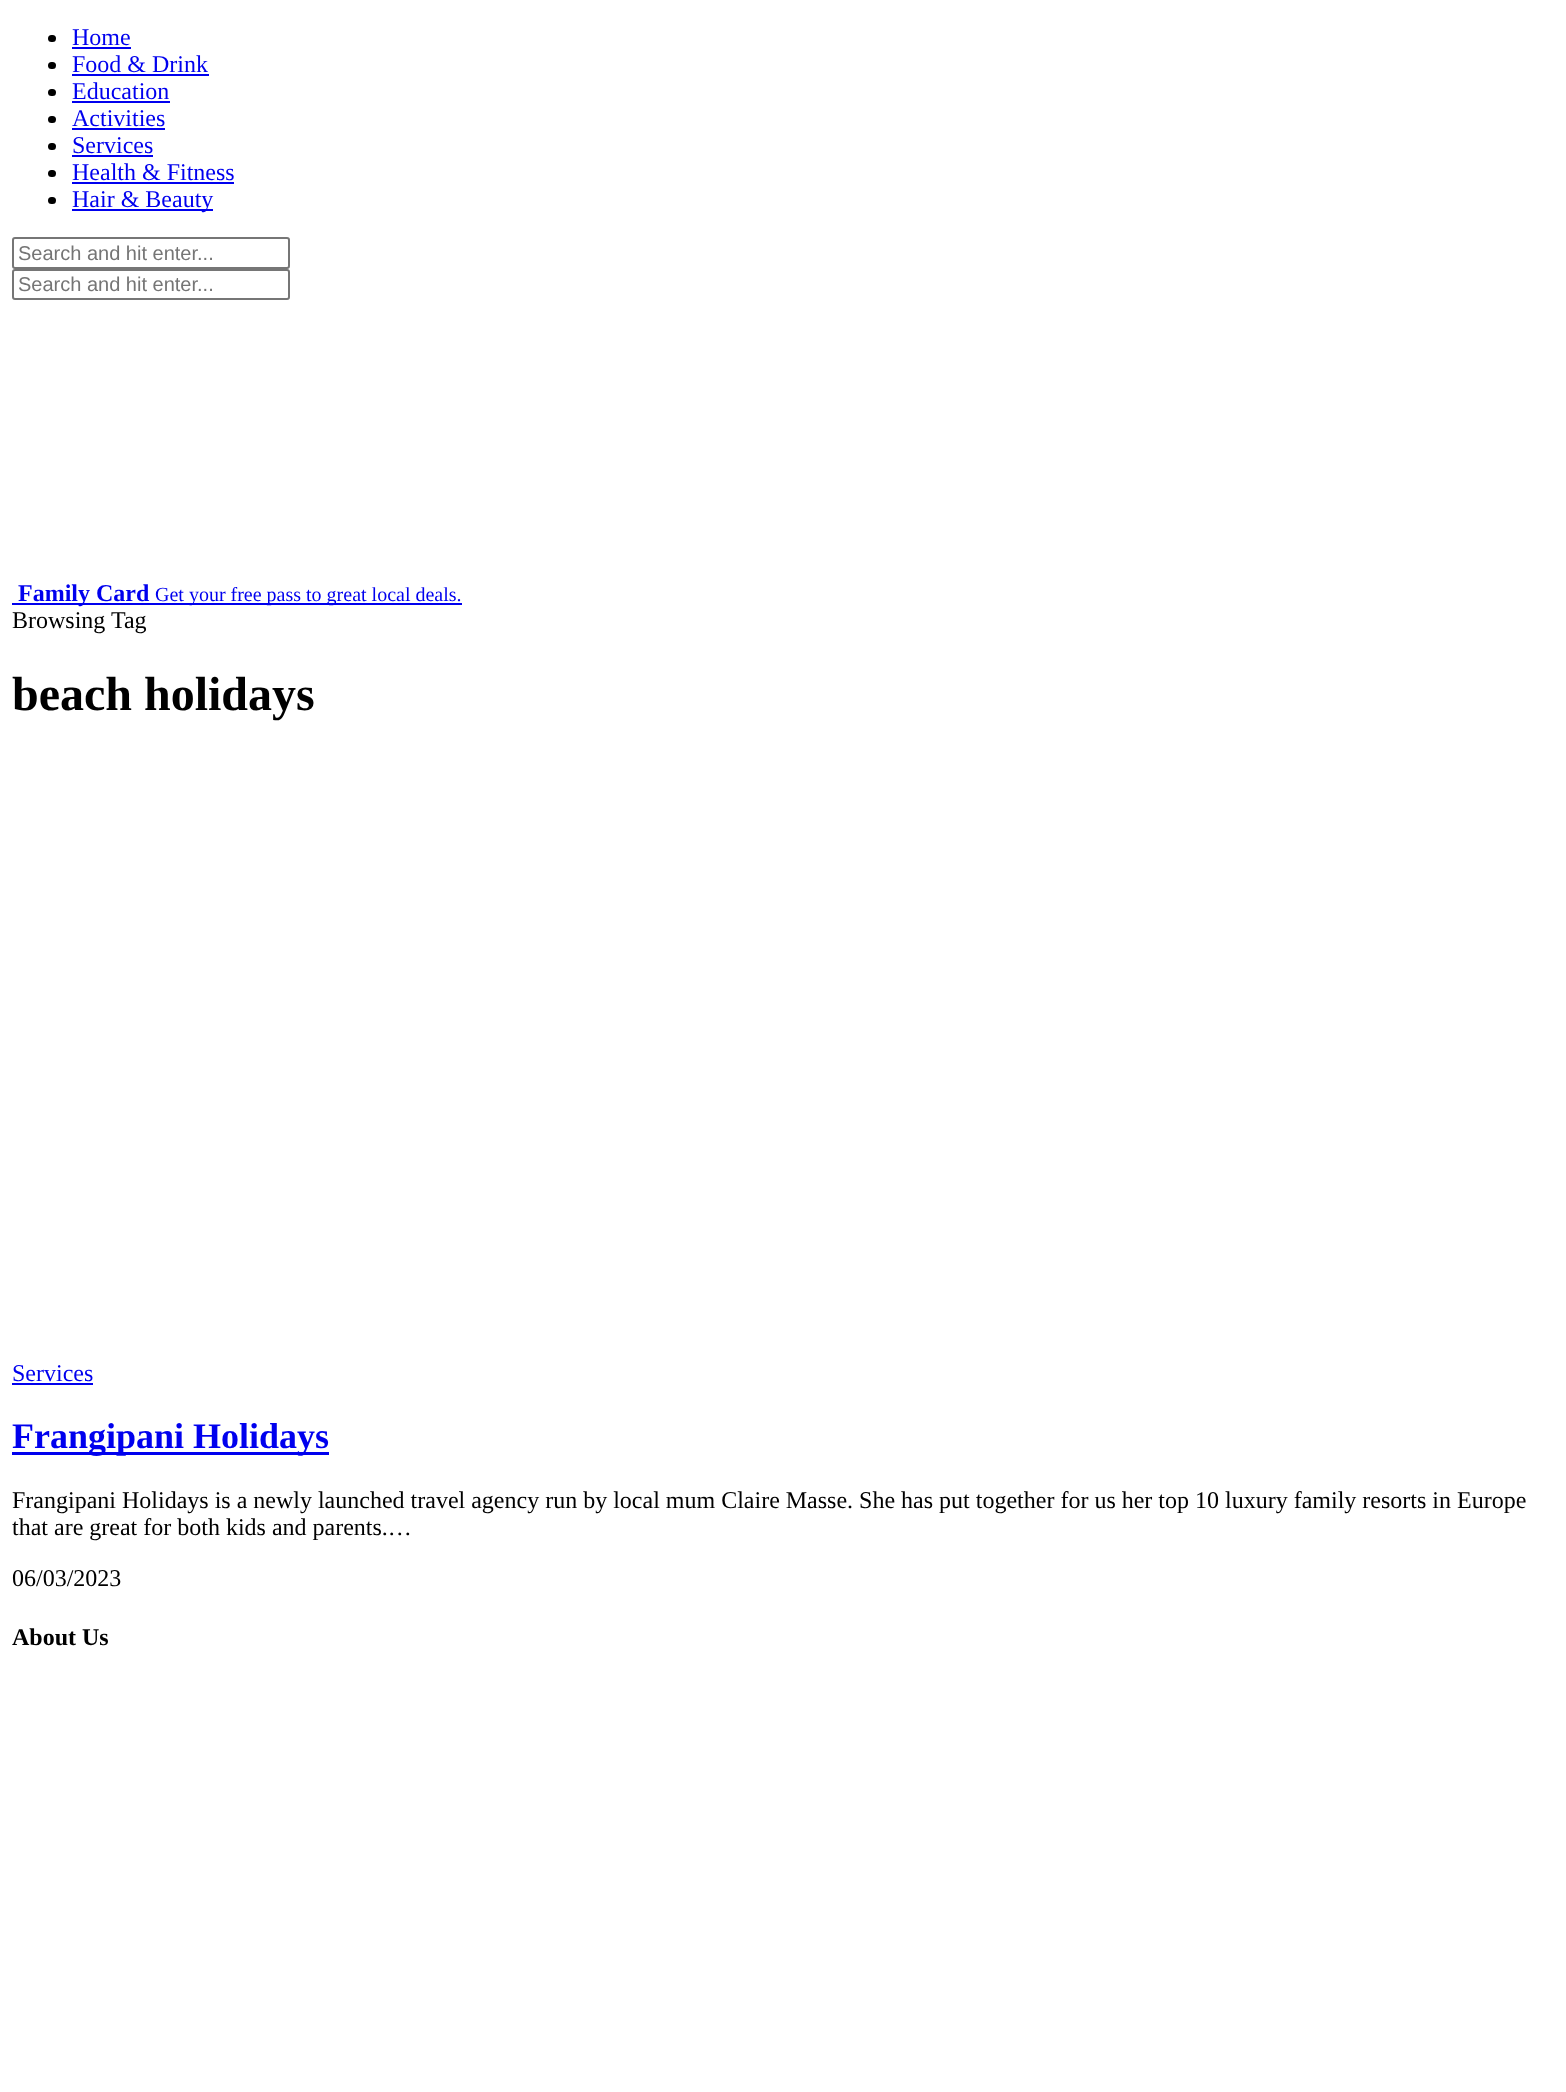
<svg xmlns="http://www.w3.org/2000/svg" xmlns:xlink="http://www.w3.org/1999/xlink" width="1566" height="2092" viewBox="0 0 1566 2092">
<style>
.cls-1{font:24px Liberation Serif;fill:#0000ee}
.cls-2{font:20px Liberation Sans;fill:#757575}
.cls-3{font:bold 24px Liberation Serif;fill:#0000ee}
.cls-4{font:20px Liberation Serif;fill:#0000ee}
.cls-5{font:24px Liberation Serif;fill:#000000}
.cls-6{font:bold 48px Liberation Serif;fill:#000000}
.cls-7{font:bold 36px Liberation Serif;fill:#0000ee}
.cls-8{font:bold 24px Liberation Serif;fill:#000000}
</style>
<rect width="100%" height="100%" fill="#ffffff"/>
<rect fill="#000000" x="48" y="35" width="8" height="7" rx="3.5"/>
<rect fill="#0000ee" x="72" y="47" width="59" height="2"/>
<rect fill="#000000" x="48" y="62" width="8" height="7" rx="3.5"/>
<rect fill="#0000ee" x="72" y="74" width="137" height="2"/>
<rect fill="#000000" x="48" y="89" width="8" height="7" rx="3.5"/>
<rect fill="#0000ee" x="72" y="101" width="98" height="2"/>
<rect fill="#000000" x="48" y="116" width="8" height="7" rx="3.5"/>
<rect fill="#0000ee" x="72" y="128" width="93" height="2"/>
<rect fill="#000000" x="48" y="143" width="8" height="7" rx="3.5"/>
<rect fill="#0000ee" x="72" y="155" width="81" height="2"/>
<rect fill="#000000" x="48" y="170" width="8" height="7" rx="3.5"/>
<rect fill="#0000ee" x="72" y="182" width="162" height="2"/>
<rect fill="#000000" x="48" y="197" width="8" height="7" rx="3.5"/>
<rect fill="#0000ee" x="72" y="209" width="141" height="2"/>
<rect fill="none" stroke="#767676" stroke-width="2" x="13" y="238" width="276" height="30" rx="2"/>
<rect fill="none" stroke="#767676" stroke-width="2" x="13" y="270" width="276" height="29" rx="2"/>
<rect fill="#0000ee" x="12" y="603" width="450" height="2"/>
<rect fill="#0000ee" x="12" y="1383" width="81" height="2"/>
<rect fill="#0000ee" x="12" y="1452" width="317" height="3"/>
<text class="cls-1"><tspan x="72" y="45">Home</tspan><tspan x="72" y="72">Food &amp; Drink</tspan><tspan x="72" y="99">Education</tspan><tspan x="72" y="126">Activities</tspan><tspan x="72" y="153">Services</tspan><tspan x="72" y="180">Health &amp; Fitness</tspan><tspan x="72" y="207">Hair &amp; Beauty</tspan></text>
<text class="cls-2"><tspan x="18" y="260">Search and hit enter...</tspan><tspan x="18" y="291">Search and hit enter...</tspan></text>
<text class="cls-3" x="18" y="601">Family Card</text>
<text class="cls-4" x="155" y="601">Get your free pass to great local deals.</text>
<text class="cls-5" x="12" y="628">Browsing Tag</text>
<text class="cls-6" x="12" y="710">beach holidays</text>
<text class="cls-1" x="12" y="1381">Services</text>
<text class="cls-7" x="12" y="1448">Frangipani Holidays</text>
<text class="cls-5"><tspan x="12" y="1508">Frangipani Holidays is a newly launched travel agency run by local mum Claire Masse. She has put together for us her top 10 luxury family resorts in Europe</tspan><tspan x="12" y="1535">that are great for both kids and parents.…</tspan></text>
<text class="cls-5" x="12" y="1586">06/03/2023</text>
<text class="cls-8" x="12" y="1645">About Us</text>
</svg>
